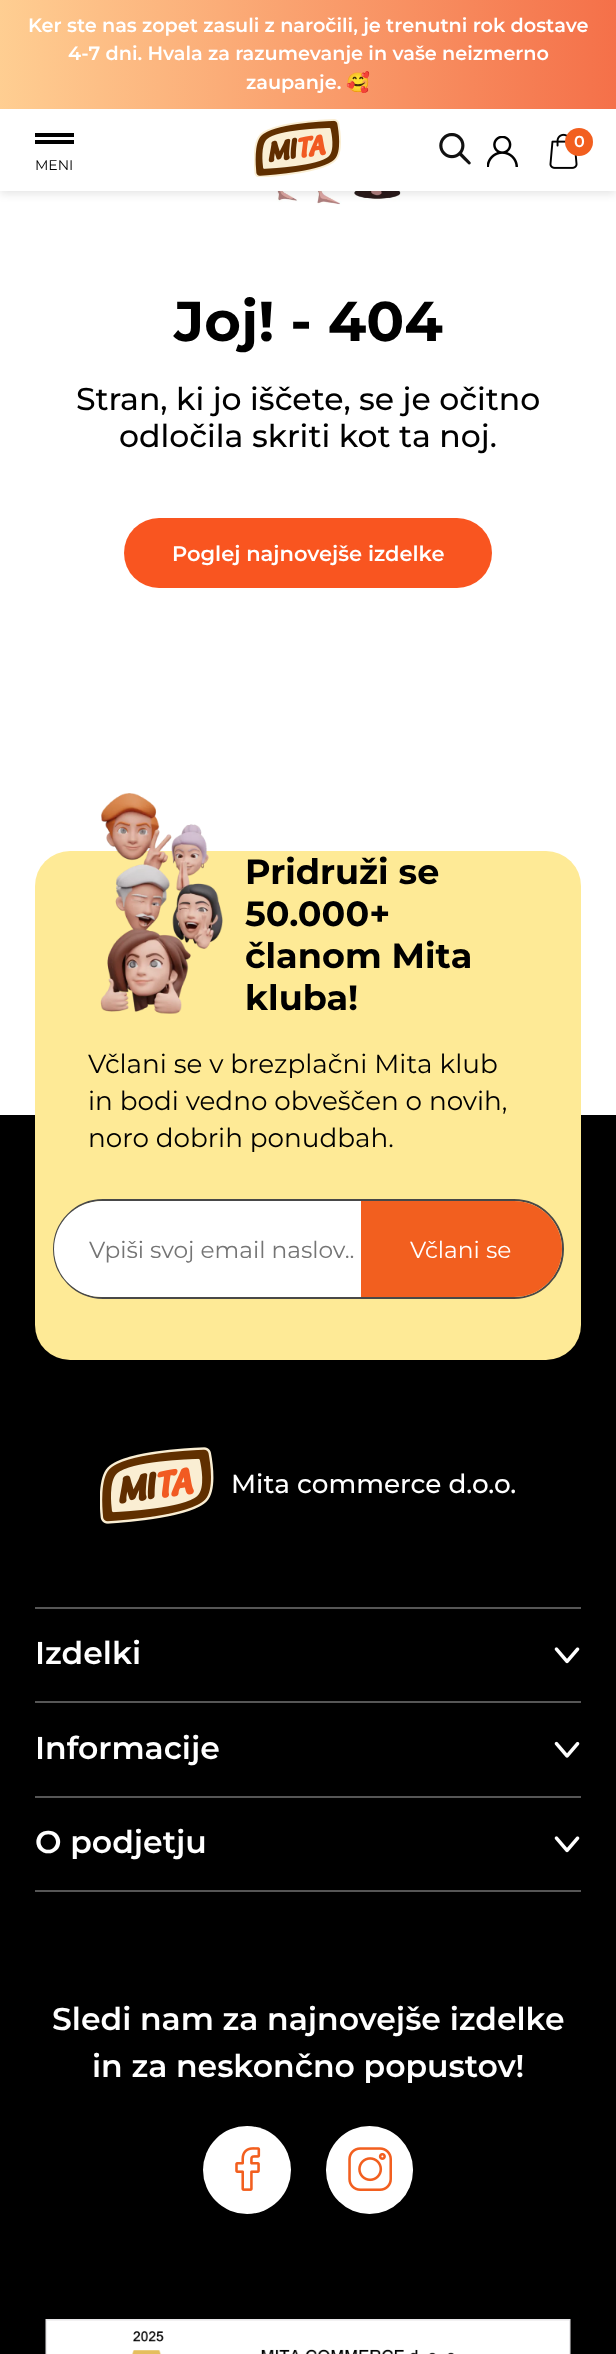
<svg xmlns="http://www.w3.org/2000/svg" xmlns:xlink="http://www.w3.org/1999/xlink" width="616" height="2354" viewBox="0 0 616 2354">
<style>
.cls-1{font:600 19.25px Montserrat;fill:#ffffff}
.cls-2{font:bold 19.25px Noto Color Emoji;fill:#ffffff}
.cls-3{font:600 16px Montserrat;fill:#ffffff}
.cls-4{font:14px Montserrat;fill:#000000}
.cls-5{font:bold 56px Montserrat;fill:#000000}
.cls-6{font:500 31.5px Montserrat;fill:#000000}
.cls-7{font:600 21px Montserrat;fill:#ffffff}
.cls-8{font:bold 35px Montserrat;fill:#000000}
.cls-9{font:26.25px Montserrat;fill:#000000}
.cls-10{font:23.25px Montserrat;fill:#757575}
.cls-11{font:23.25px Montserrat;fill:#ffffff}
.cls-12{font:500 26.25px Montserrat;fill:#ffffff}
.cls-13{font:600 31.5px Montserrat;fill:#ffffff}
</style>
<defs>
<linearGradient id="g1" gradientUnits="userSpaceOnUse" x1="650" y1="55" x2="-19" y2="53"><stop offset="0" stop-color="#f46b45"/><stop offset="1" stop-color="#ffd194"/></linearGradient>
</defs>
<rect width="100%" height="100%" fill="#ffffff"/>
<image xlink:href="image4.png" x="215" y="191" width="186" height="14"/>
<rect fill="#000000" fill-opacity="0.1" filter="blur(4.5px)" x="0" y="4" width="616" height="190"/>
<rect fill="#ffffff" x="0" y="109" width="616" height="82"/>
<rect fill="url(#g1)" x="0" y="0" width="616" height="109"/>
<image xlink:href="image0.png" x="439" y="133" width="32" height="32"/>
<image xlink:href="image1.png" x="487" y="136" width="31" height="31"/>
<image xlink:href="image2.png" x="549" y="133" width="29" height="36"/>
<circle fill="#f25f1f" cx="579" cy="142" r="14"/>
<rect fill="#000000" x="35" y="133" width="39" height="4"/>
<rect fill="#000000" x="35" y="140" width="39" height="4"/>
<image xlink:href="image3.png" x="254" y="119" width="87" height="58"/>
<rect fill="#f95520" x="124" y="518" width="368" height="70" rx="35"/>
<rect fill="#000000" x="0" y="1115" width="616" height="1239"/>
<rect fill="#feea96" x="35" y="851" width="546" height="509" rx="35"/>
<image xlink:href="image5.png" x="100" y="793" width="123" height="221"/>
<rect fill="none" stroke="#484848" stroke-width="2" x="54" y="1200" width="509" height="98" rx="49"/>
<path fill="#ffffff" d="M102 1201H359V1297H102C75.5 1297 54 1275.5 54 1249C54 1222.5 75.5 1201 102 1201Z"/>
<path fill="#f25f1f" d="M359 1201H514C540.5 1201 562 1222.5 562 1249C562 1275.5 540.5 1297 514 1297H359Z"/>
<rect fill="#ffffff" x="359" y="1201" width="2" height="96"/>
<image xlink:href="image6.png" x="100" y="1447" width="114" height="77"/>
<rect fill="#565656" x="35" y="1607" width="546" height="2"/>
<image xlink:href="image7.png" x="554" y="1647" width="26" height="17"/>
<rect fill="#565656" x="35" y="1701" width="546" height="2"/>
<image xlink:href="image8.png" x="554" y="1741" width="26" height="17"/>
<rect fill="#565656" x="35" y="1890" width="546" height="2"/>
<rect fill="#565656" x="35" y="1796" width="546" height="2"/>
<image xlink:href="image7.png" x="554" y="1836" width="26" height="17"/>
<circle fill="#ffffff" cx="247" cy="2170" r="44"/>
<image xlink:href="image9.png" x="235" y="2147" width="26" height="44"/>
<rect fill="#ffffff" x="326" y="2126" width="87" height="88" rx="43.5"/>
<image xlink:href="image10.png" x="348" y="2147" width="44" height="44"/>
<image xlink:href="image11.png" x="45" y="2319" width="526" height="35"/>
<text class="cls-1" x="28" y="32">Ker ste nas zopet zasuli z naročili, je trenutni rok dostave</text>
<text class="cls-1" x="68" y="60">4-7 dni. Hvala za razumevanje in vaše neizmerno</text>
<text class="cls-1" x="246" y="89">zaupanje.</text>
<text class="cls-2" x="346" y="89">🥰</text>
<text class="cls-3" x="574" y="147">0</text>
<text class="cls-4" x="35" y="170">MENI</text>
<text class="cls-5" x="174" y="341">Joj! - 404</text>
<text class="cls-6" x="76" y="410">Stran, ki jo iščete, se je očitno</text>
<text class="cls-6" x="119" y="447">odločila skriti kot ta noj.</text>
<text class="cls-7" x="172" y="561">Poglej najnovejše izdelke</text>
<text class="cls-8"><tspan x="245" y="884">Pridruži se</tspan><tspan x="245" y="926">50.000+</tspan><tspan x="245" y="968">članom Mita</tspan><tspan x="245" y="1010">kluba!</tspan></text>
<text class="cls-9"><tspan x="88" y="1073">Včlani se v brezplačni Mita klub</tspan><tspan x="88" y="1110">in bodi vedno obveščen o novih,</tspan><tspan x="88" y="1147">noro dobrih ponudbah.</tspan></text>
<text class="cls-10" x="89" y="1258">Vpiši svoj email naslov..</text>
<text class="cls-11" x="410" y="1258">Včlani se</text>
<text class="cls-12" x="231" y="1493">Mita commerce d.o.o.</text>
<text class="cls-13" x="35" y="1664">Izdelki</text>
<text class="cls-13" x="35" y="1759">Informacije</text>
<text class="cls-13" x="35" y="1853">O podjetju</text>
<text class="cls-13" x="52" y="2030">Sledi nam za najnovejše izdelke</text>
<text class="cls-13" x="92" y="2077">in za neskončno popustov!</text>
</svg>
